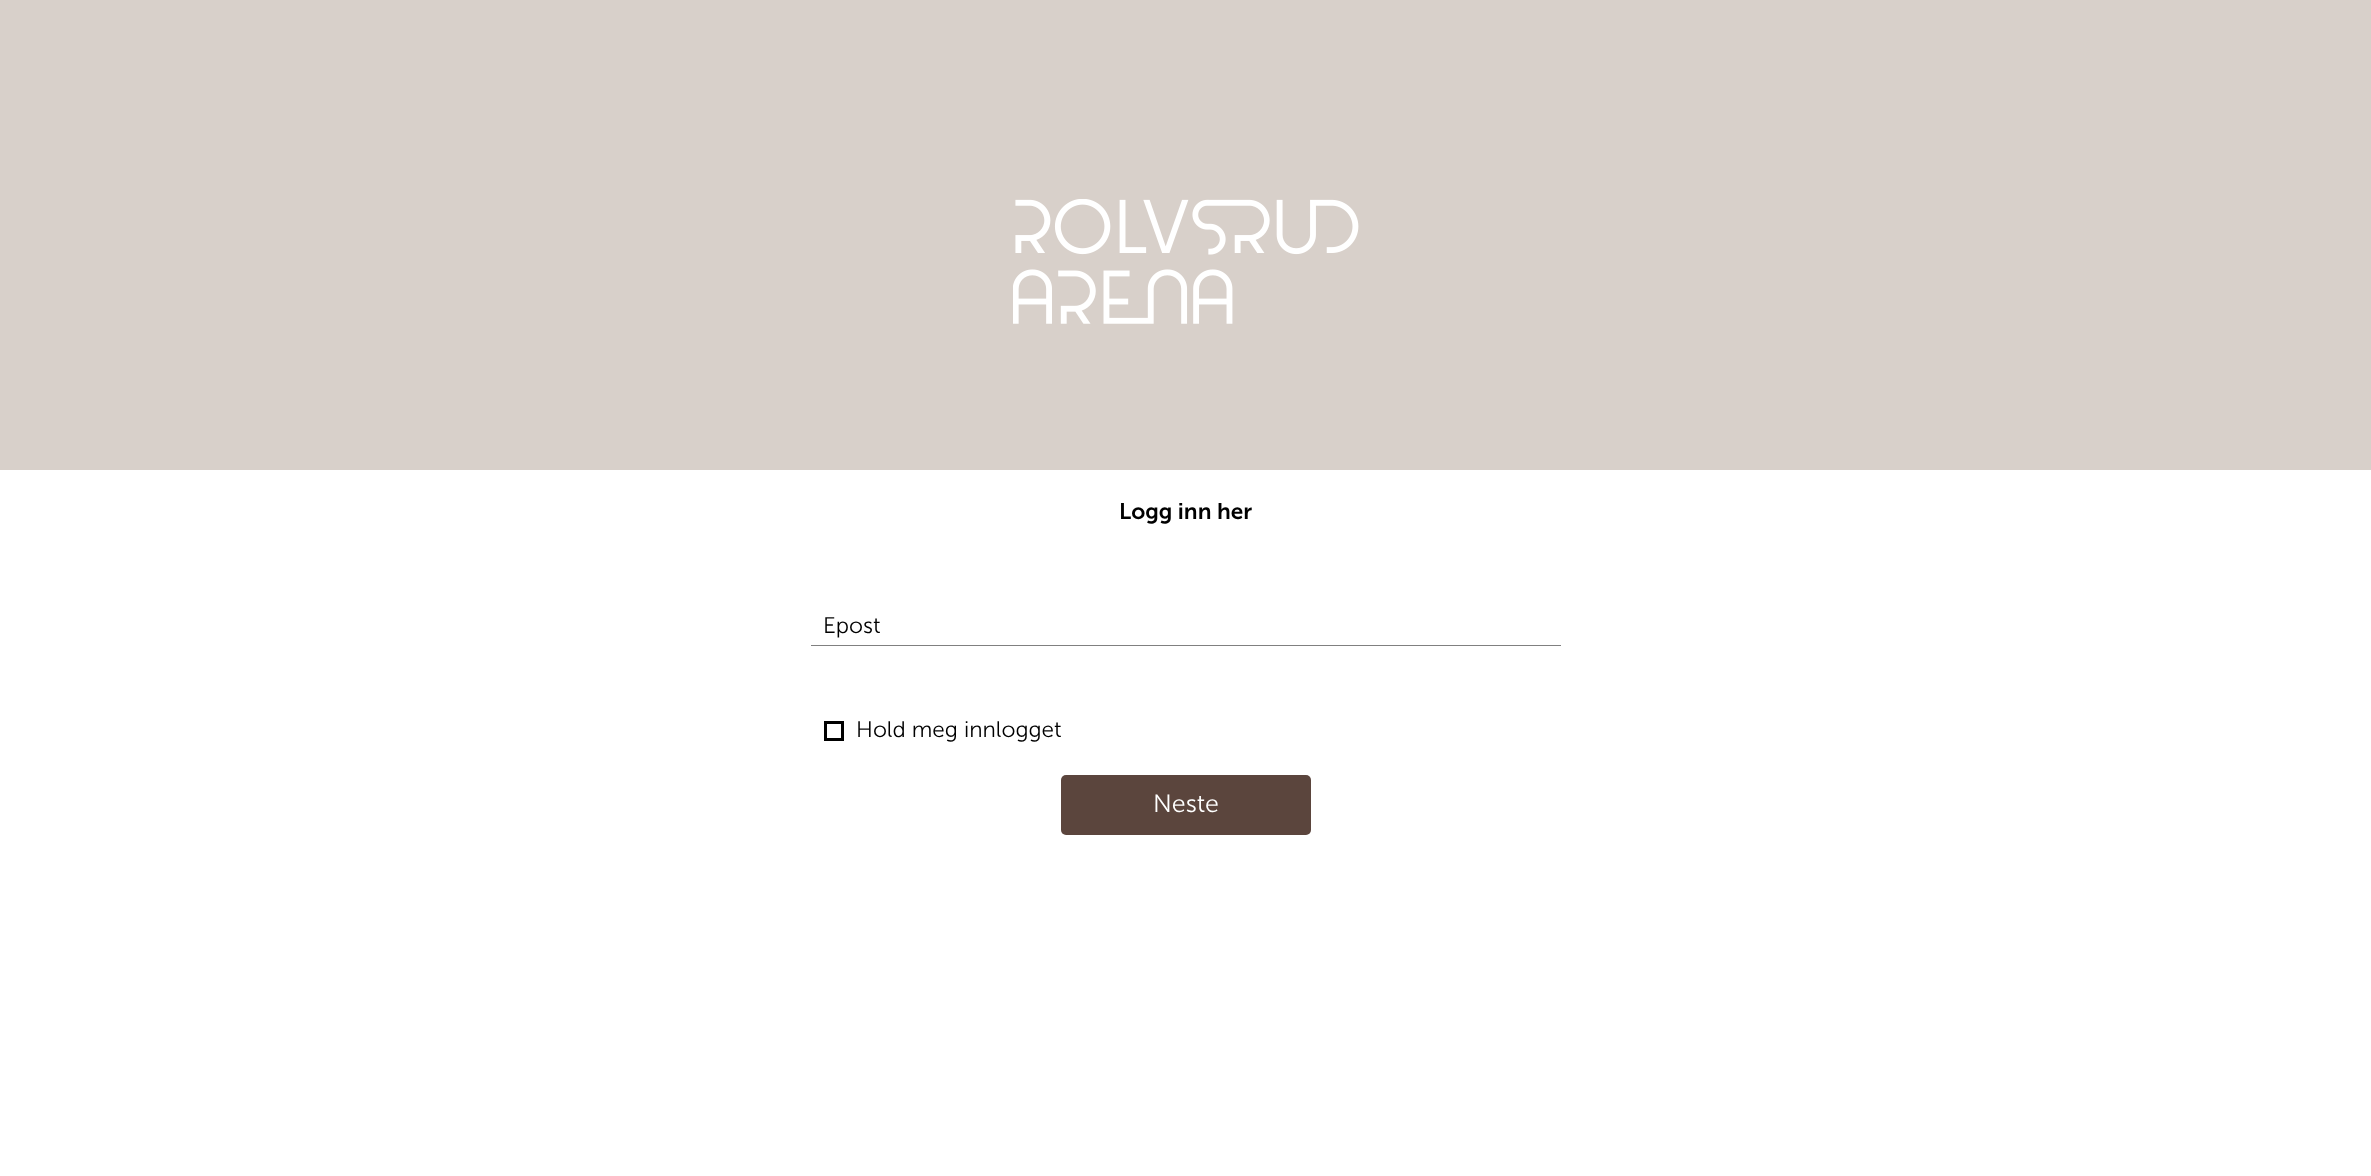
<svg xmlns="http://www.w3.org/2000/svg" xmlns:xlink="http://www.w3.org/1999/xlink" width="2371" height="1176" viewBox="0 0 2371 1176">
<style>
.cls-1{font:600 22.5px 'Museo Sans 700';fill:#000000}
.cls-2{font:300 22.5px 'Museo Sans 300';fill:#000000}
.cls-3{font:300 25px 'Museo Sans 300';fill:#ffffff}
</style>
<rect width="100%" height="100%" fill="#d8d0ca"/>
<image xlink:href="image0.png" x="1013" y="199" width="346" height="125"/>
<rect fill="#ffffff" x="0" y="470" width="2371" height="706"/>
<rect fill="#808080" x="811" y="645" width="750" height="1"/>
<rect fill="none" stroke="#000000" stroke-width="3" x="825.5" y="722.5" width="17" height="17"/>
<rect fill="#5b453d" x="1061" y="775" width="250" height="60" rx="5"/>
<text class="cls-1" x="1119" y="519">Logg inn her</text>
<text class="cls-2" x="823" y="633">Epost</text>
<text class="cls-2" x="856" y="737">Hold meg innlogget</text>
<text class="cls-3" x="1153" y="812">Neste</text>
</svg>
